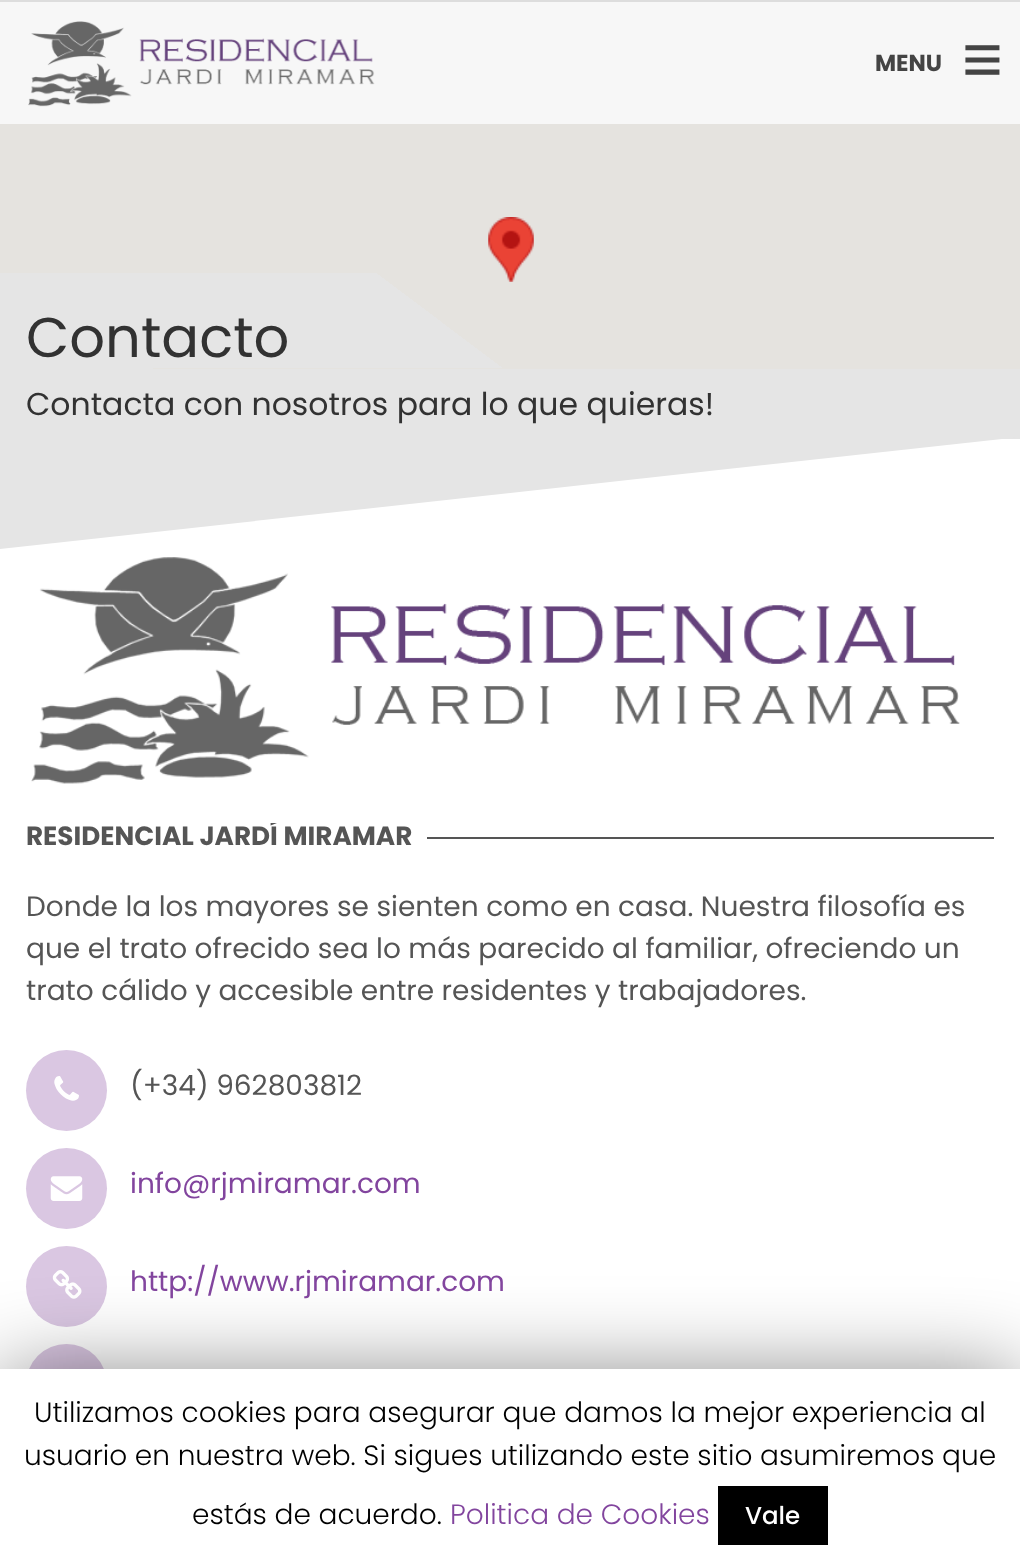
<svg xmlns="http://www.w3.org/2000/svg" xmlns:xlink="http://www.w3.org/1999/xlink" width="1020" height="1567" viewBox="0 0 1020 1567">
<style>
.cls-1{font:bold 23px Poppins;fill:#444444}
.cls-2{font:bold 70px Liberation Sans;fill:#444444}
.cls-3{font:56px Poppins;fill:#323232}
.cls-4{font:31.5px Poppins;fill:#323232}
.cls-5{font:bold 26.25px Poppins;fill:#555555}
.cls-6{font:28px Poppins;fill:#555555}
.cls-7{font:28px Poppins;fill:#82459e}
.cls-8{font:300 28px Poppins;fill:#000000}
.cls-9{font:300 28px Poppins;fill:#82459e}
.cls-10{font:500 24.5px Poppins;fill:#ffffff}
</style>
<defs>
<linearGradient id="g1" gradientUnits="userSpaceOnUse" x1="0" y1="321" x2="1020" y2="321"><stop offset="0" stop-color="#e5e5e5"/><stop offset="0.15" stop-color="#e5e5e5"/><stop offset="0.15" stop-color="#e5e5e5" stop-opacity="0"/><stop offset="1" stop-color="#ffffff" stop-opacity="0"/></linearGradient>
<linearGradient id="g2" gradientUnits="userSpaceOnUse" x1="394" y1="381" x2="485" y2="260"><stop offset="0" stop-color="#e5e5e5"/><stop offset="0.5" stop-color="#e5e5e5"/><stop offset="0.5" stop-color="#e5e3df"/><stop offset="1" stop-color="#e5e3df"/></linearGradient>
<clipPath id="clip1"><rect x="26" y="823" width="968" height="29"/></clipPath>
</defs>
<rect width="100%" height="100%" fill="#f7f7f7"/>
<rect fill="#dddddd" x="0" y="0" width="1020" height="2"/>
<image xlink:href="image0.png" x="28" y="21" width="347" height="86"/>
<rect fill="#e5e3df" x="0" y="124" width="1020" height="245"/>
<image xlink:href="image1.png" x="488" y="217" width="46" height="65"/>
<rect fill="url(#g1)" x="0" y="273" width="153" height="96"/>
<rect fill="#e5e5e5" x="153" y="273" width="223" height="95"/>
<rect fill="url(#g2)" x="376" y="273" width="126" height="95"/>
<rect fill="#e5e5e5" x="0" y="369" width="1020" height="70"/>
<rect fill="#ffffff" x="0" y="439" width="1020" height="930"/>
<path fill="#e5e5e5" d="M1020 437H0V549Z"/>
<image xlink:href="image2.png" x="31" y="557" width="929" height="227"/>
<rect fill="#555555" x="427" y="837" width="567" height="2"/>
<circle fill="#dac7e2" cx="66.5" cy="1090.5" r="40.5"/>
<image xlink:href="image3.png" x="54" y="1076" width="25" height="25"/>
<circle fill="#dac7e2" cx="66.5" cy="1188.5" r="40.5"/>
<image xlink:href="image4.png" x="50" y="1176" width="33" height="25"/>
<circle fill="#dac7e2" cx="66.5" cy="1286.5" r="40.5"/>
<image xlink:href="image5.png" x="52" y="1270" width="30" height="29"/>
<circle fill="#dac7e2" cx="66.5" cy="1384.5" r="40.5"/>
<rect fill="#000000" fill-opacity="0.5" filter="blur(44px)" x="0" y="1377" width="1020" height="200"/>
<rect fill="#ffffff" x="0" y="1369" width="1020" height="198"/>
<rect fill="#000000" x="718" y="1486" width="110" height="59"/>
<text class="cls-1" x="875" y="71">MENU</text>
<text class="cls-2" x="962" y="83">≡</text>
<text class="cls-3" x="26" y="357">Contacto</text>
<text class="cls-4" x="26" y="415">Contacta con nosotros para lo que quieras!</text>
<g clip-path="url(#clip1)">
<text class="cls-5" x="26" y="845">RESIDENCIAL JARDÍ MIRAMAR</text>
</g>
<text class="cls-6"><tspan x="26" y="916">Donde la los mayores se sienten como en casa. Nuestra filosofía es</tspan><tspan x="26" y="958">que el trato ofrecido sea lo más parecido al familiar, ofreciendo un</tspan><tspan x="26" y="1000">trato cálido y accesible entre residentes y trabajadores.</tspan></text>
<text class="cls-6" x="130" y="1095">(+34) 962803812</text>
<text class="cls-7" x="130" y="1193">info@rjmiramar.com</text>
<text class="cls-7" x="130" y="1291">http://www.rjmiramar.com</text>
<text class="cls-8" x="34" y="1422">Utilizamos cookies para asegurar que damos la mejor experiencia al</text>
<text class="cls-8" x="24" y="1465">usuario en nuestra web. Si sigues utilizando este sitio asumiremos que</text>
<text class="cls-8" x="192" y="1524">estás de acuerdo.</text>
<text class="cls-9" x="450" y="1524">Politica de Cookies</text>
<text class="cls-10" x="745" y="1524">Vale</text>
</svg>
